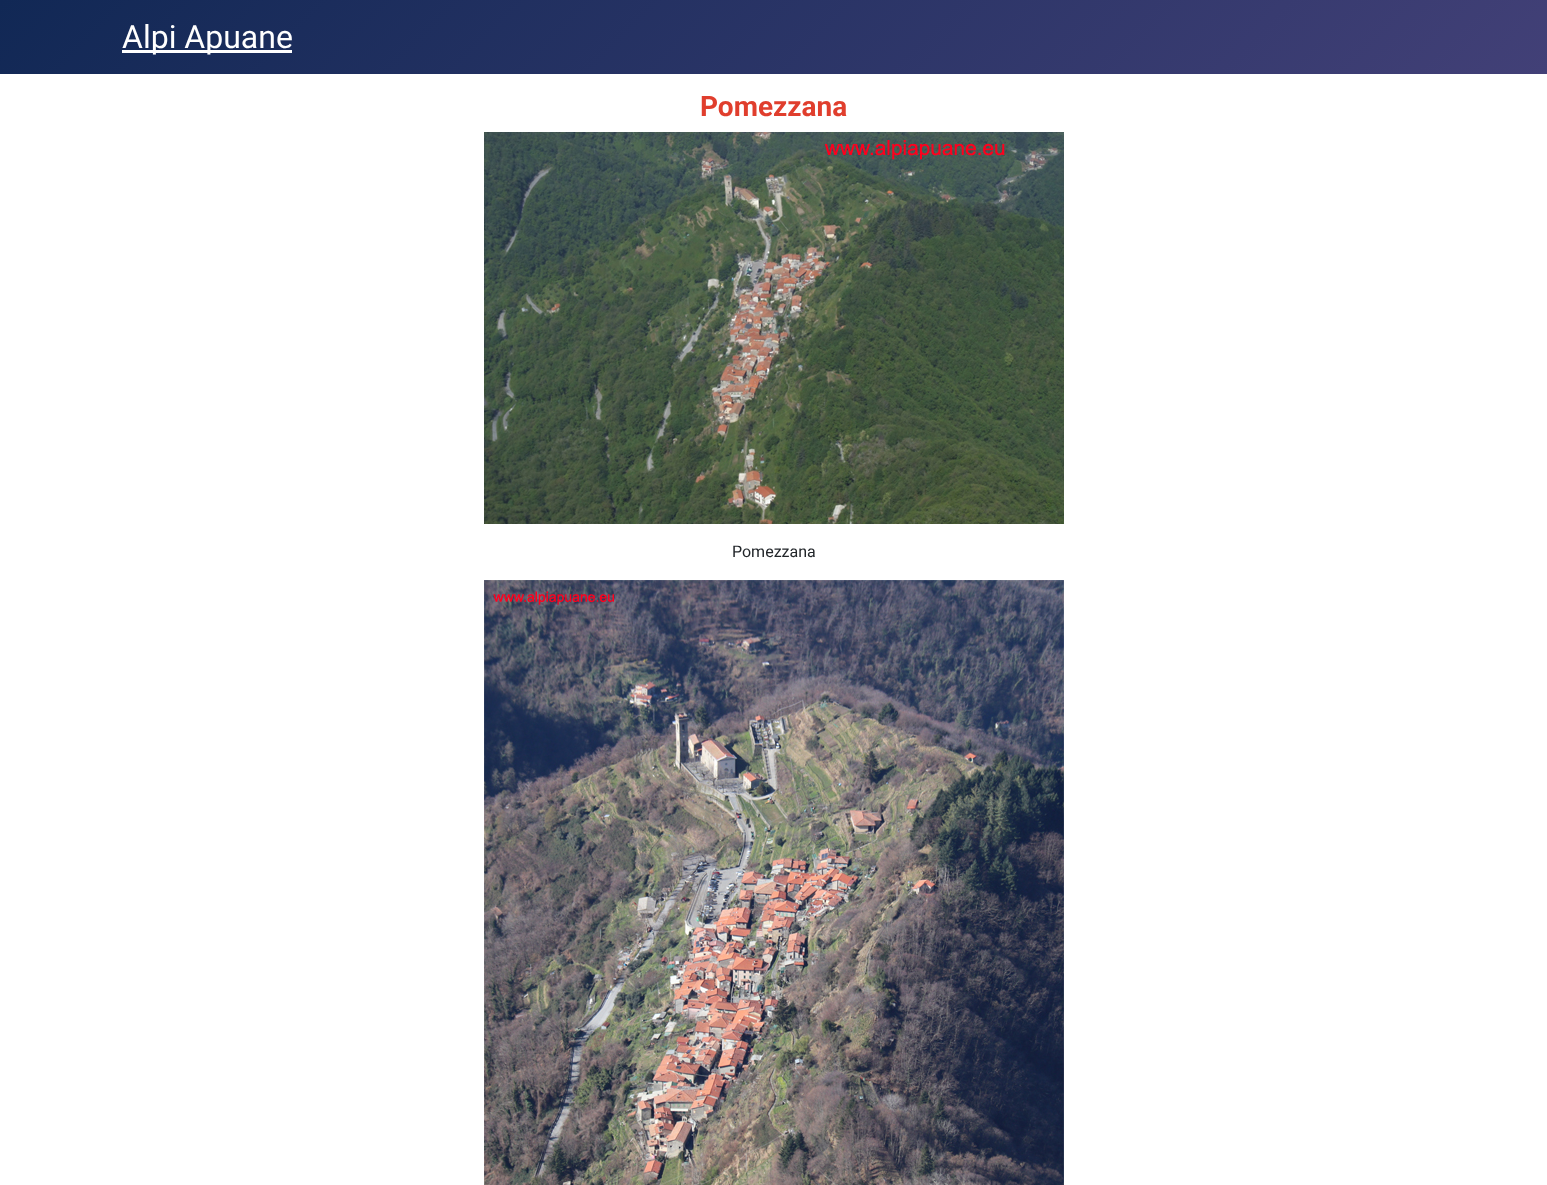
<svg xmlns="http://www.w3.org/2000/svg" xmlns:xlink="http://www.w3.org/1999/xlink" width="1547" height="1185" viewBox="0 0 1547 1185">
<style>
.cls-1{font:32px Roboto;fill:#ffffff}
.cls-2{font:bold 28px Roboto;fill:#e03e2d}
.cls-3{font:16px Roboto;fill:#22262a}
</style>
<defs>
<linearGradient id="g1" gradientUnits="userSpaceOnUse" x1="368" y1="-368" x2="1179" y2="442"><stop offset="0" stop-color="#112855"/><stop offset="1" stop-color="#424077"/></linearGradient>
</defs>
<rect width="100%" height="100%" fill="#ffffff"/>
<rect fill="url(#g1)" x="0" y="0" width="1547" height="74"/>
<rect fill="#ffffff" x="122" y="50" width="170" height="3"/>
<image xlink:href="image0.png" x="484" y="132" width="580" height="392"/>
<image xlink:href="image1.png" x="484" y="580" width="580" height="605"/>
<text class="cls-1" x="122" y="48">Alpi Apuane</text>
<text class="cls-2" x="700" y="116">Pomezzana</text>
<text class="cls-3" x="732" y="557">Pomezzana</text>
</svg>
